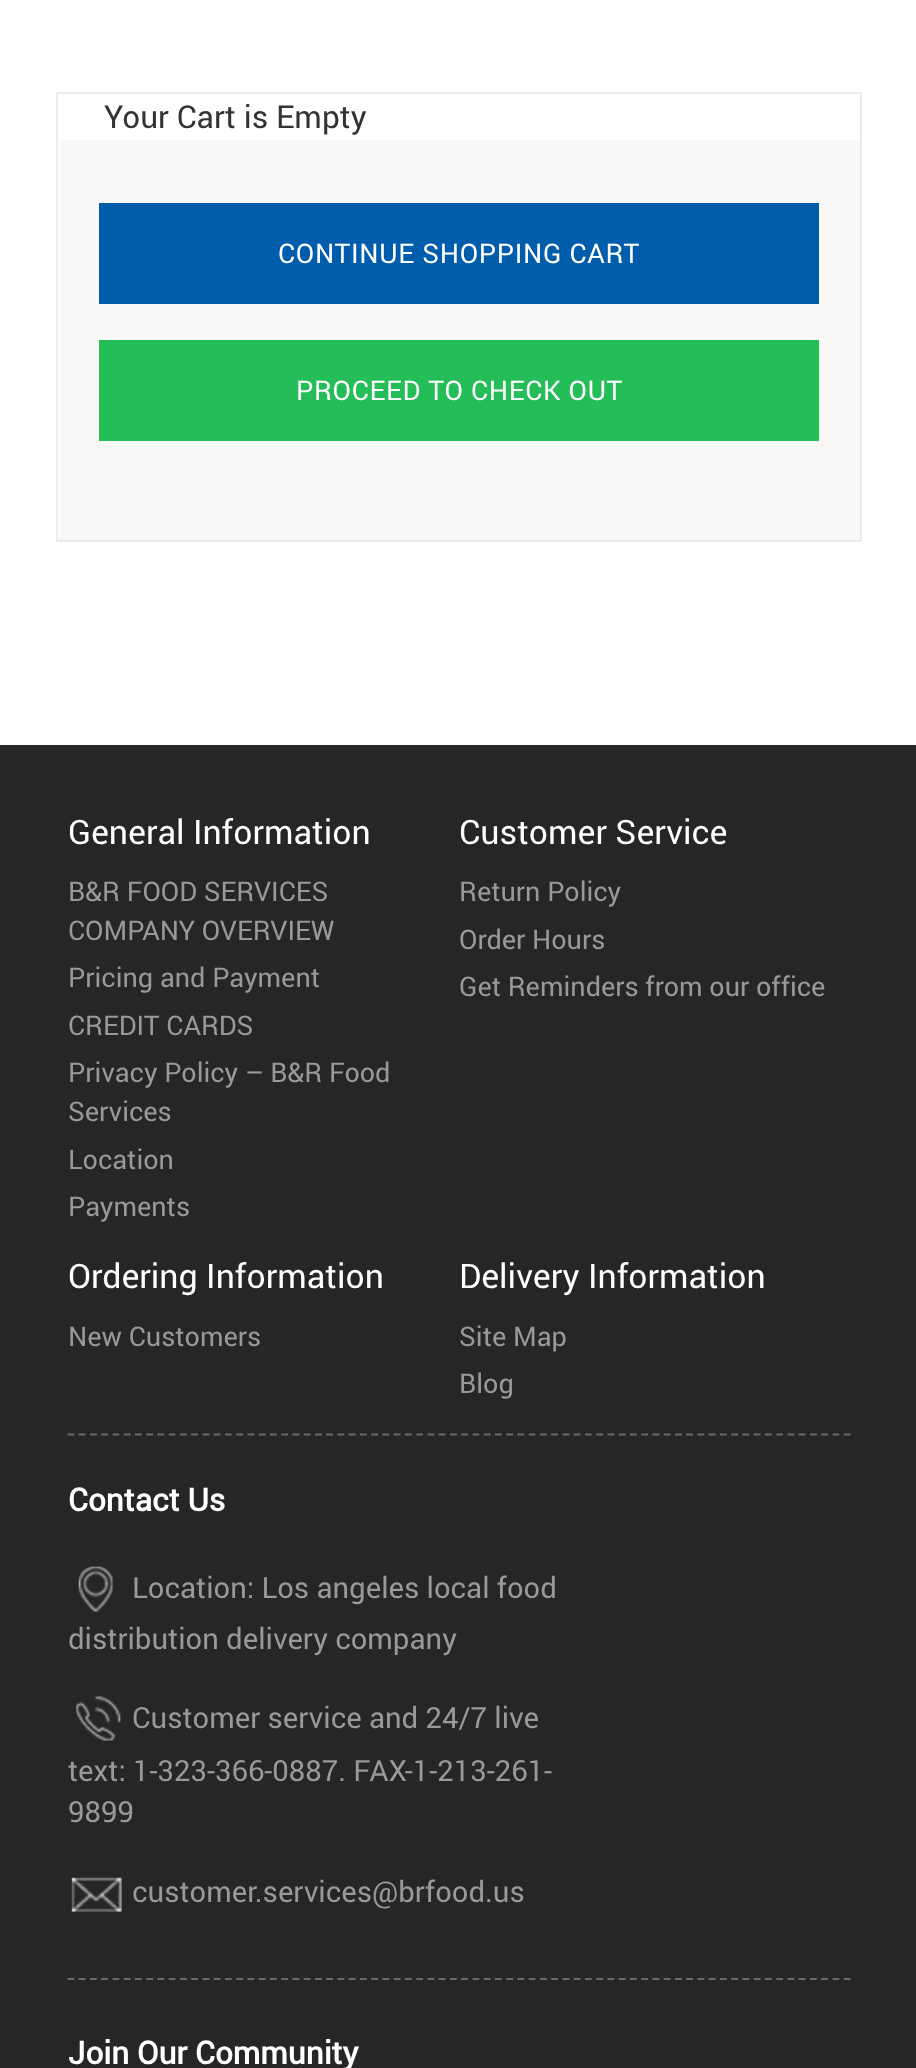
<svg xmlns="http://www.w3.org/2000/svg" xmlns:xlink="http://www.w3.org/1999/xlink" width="916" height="2068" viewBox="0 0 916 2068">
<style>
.cls-1{font:31.5px Roboto;fill:#333333}
.cls-2{font:27px Roboto;letter-spacing:0.7px;fill:#ffffff}
.cls-3{font:33.75px Roboto;fill:#ffffff}
.cls-4{font:27px Roboto;fill:#999999}
.cls-5{font:bold 31.5px Roboto;fill:#ffffff}
.cls-6{font:29.25px Roboto;fill:#999999}
</style>
<rect width="100%" height="100%" fill="#ffffff"/>
<rect fill="none" stroke="#ececec" stroke-width="2" x="57" y="93" width="804" height="448"/>
<rect fill="#f9f8f6" x="59" y="140" width="801" height="400"/>
<rect fill="#005dab" x="99" y="203" width="720" height="101"/>
<rect fill="#25bd57" x="99" y="340" width="720" height="101"/>
<rect fill="#262626" x="0" y="745" width="916" height="1323"/>
<path fill="none" stroke="#6b6969" stroke-width="2.2" stroke-dasharray="6.75 4.5" d="M67.5 1434.5H850.5"/>
<path fill="none" stroke="#6b6969" stroke-width="2.2" stroke-dasharray="6.75 4.5" d="M67.5 1979H850.5"/>
<image xlink:href="image0.png" x="78" y="1566" width="35" height="46"/>
<image xlink:href="image1.png" x="76" y="1696" width="45" height="45"/>
<image xlink:href="image2.png" x="71" y="1877" width="51" height="35"/>
<text class="cls-1" x="104" y="128">Your Cart is Empty</text>
<text class="cls-2" x="278" y="263">CONTINUE SHOPPING CART</text>
<text class="cls-2" x="296" y="400">PROCEED TO CHECK OUT</text>
<text class="cls-3" x="68" y="844">General Information</text>
<text class="cls-4"><tspan x="68" y="901">B&amp;R FOOD SERVICES</tspan><tspan x="68" y="940">COMPANY OVERVIEW</tspan><tspan x="68" y="987">Pricing and Payment</tspan><tspan x="68" y="1035">CREDIT CARDS</tspan><tspan x="68" y="1082">Privacy Policy – B&amp;R Food</tspan><tspan x="68" y="1121">Services</tspan><tspan x="68" y="1169">Location</tspan><tspan x="68" y="1216">Payments</tspan></text>
<text class="cls-3" x="459" y="844">Customer Service</text>
<text class="cls-4"><tspan x="459" y="901">Return Policy</tspan><tspan x="459" y="949">Order Hours</tspan><tspan x="459" y="996">Get Reminders from our office</tspan></text>
<text class="cls-3" x="68" y="1288">Ordering Information</text>
<text class="cls-4" x="68" y="1346">New Customers</text>
<text class="cls-3" x="459" y="1288">Delivery Information</text>
<text class="cls-4"><tspan x="459" y="1346">Site Map</tspan><tspan x="459" y="1393">Blog</tspan></text>
<text class="cls-5" x="68" y="1511">Contact Us</text>
<text class="cls-6" x="132" y="1598">Location: Los angeles local food</text>
<text class="cls-6" x="68" y="1649">distribution delivery company</text>
<text class="cls-6" x="132" y="1728">Customer service and 24/7 live</text>
<text class="cls-6"><tspan x="68" y="1781">text: 1-323-366-0887. FAX-1-213-261-</tspan><tspan x="68" y="1822">9899</tspan></text>
<text class="cls-6" x="132" y="1902">customer.services@brfood.us</text>
<text class="cls-5" x="68" y="2064">Join Our Community</text>
</svg>
